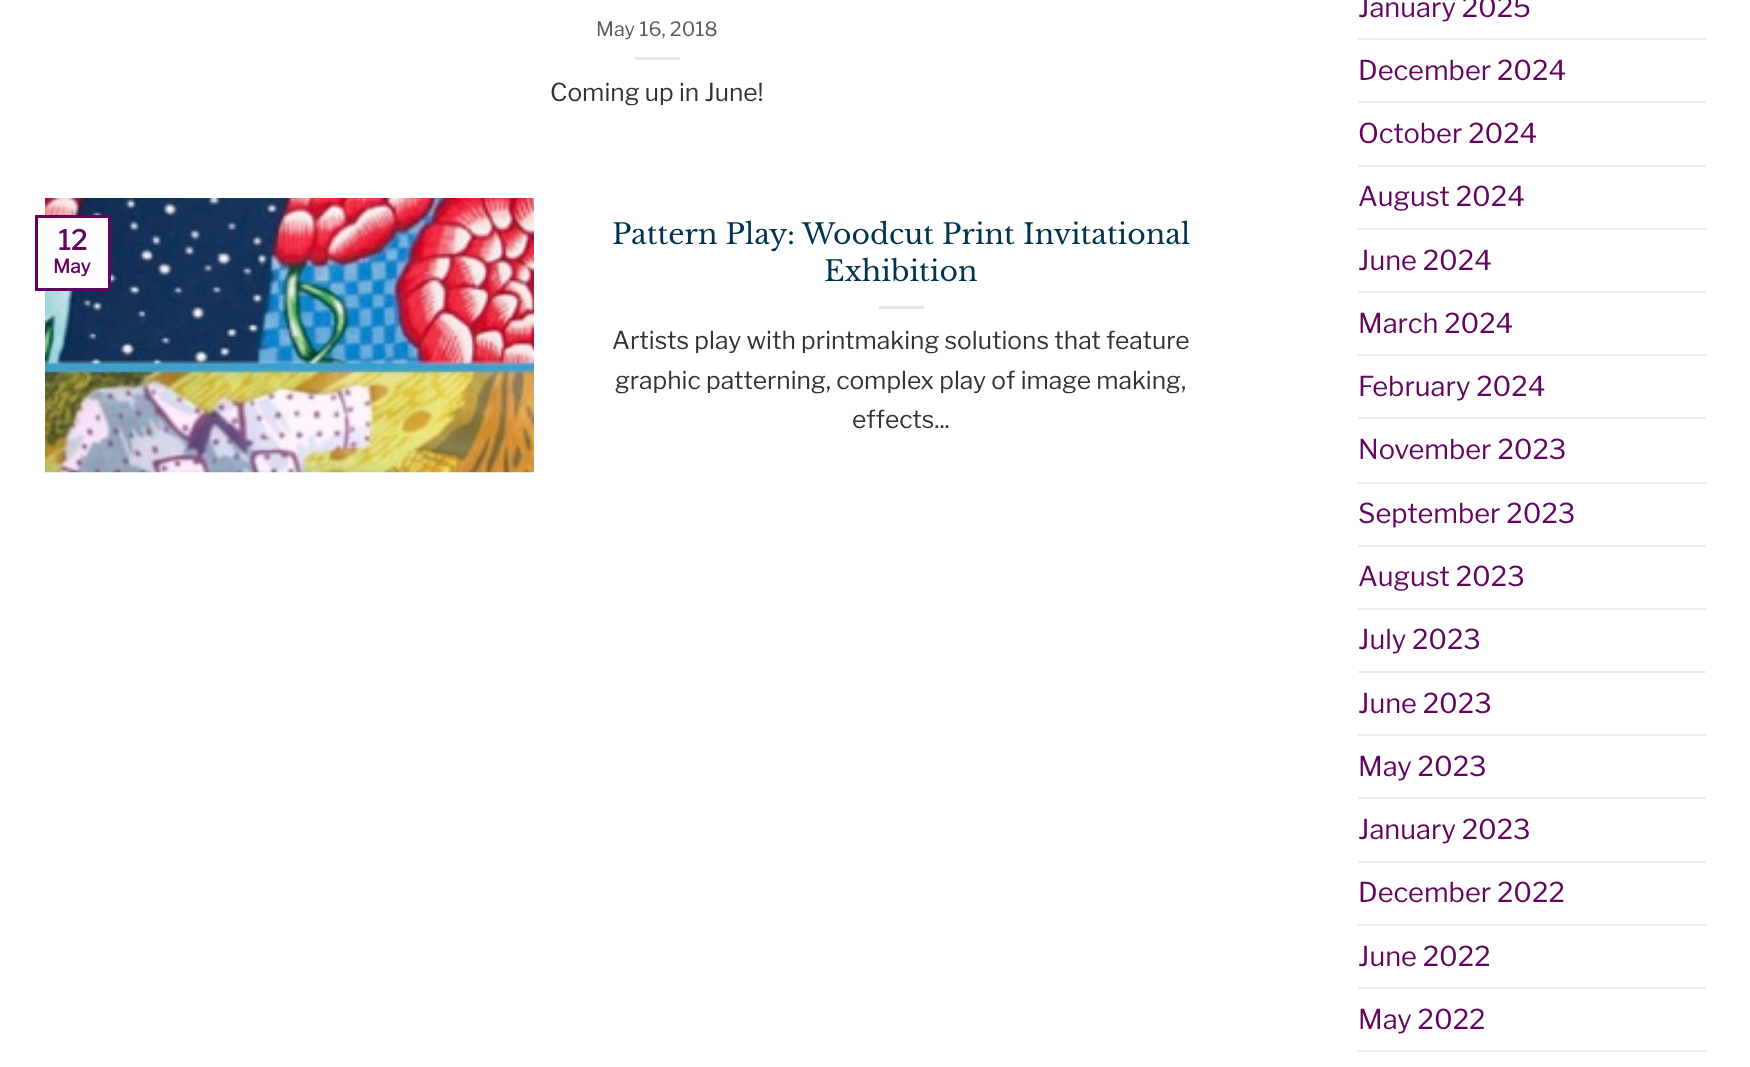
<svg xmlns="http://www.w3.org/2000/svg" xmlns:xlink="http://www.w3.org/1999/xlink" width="1750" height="1067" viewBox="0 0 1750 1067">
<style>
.cls-1{font:100 19.75px Libre Franklin;fill:#5c5c5c}
.cls-2{font:100 24.6px Libre Franklin;fill:#333333}
.cls-3{font:28.3px Libre Baskerville;fill:#00344f}
.cls-4{font:bold 27.25px Libre Franklin;fill:#630460}
.cls-5{font:bold 19px Libre Franklin;fill:#630460}
.cls-6{font:100 27.25px Libre Franklin;fill:#630460}
</style>
<rect width="100%" height="100%" fill="#ffffff"/>
<rect fill="#e6e6e6" x="635" y="57" width="45" height="3"/>
<image xlink:href="image0.png" x="45" y="198" width="489" height="275"/>
<rect fill="#e6e6e6" x="879" y="306" width="45" height="3"/>
<rect fill="#ffffff" x="45" y="218" width="63" height="70"/>
<rect fill="none" stroke="#630460" stroke-width="3" x="36.5" y="216.5" width="73" height="73"/>
<rect fill="#ececec" x="1358" y="38" width="348" height="2"/>
<rect fill="#ececec" x="1358" y="101" width="348" height="2"/>
<rect fill="#ececec" x="1358" y="165" width="348" height="2"/>
<rect fill="#ececec" x="1358" y="228" width="348" height="2"/>
<rect fill="#ececec" x="1358" y="291" width="348" height="2"/>
<rect fill="#ececec" x="1358" y="354" width="348" height="2"/>
<rect fill="#ececec" x="1358" y="417" width="348" height="2"/>
<rect fill="#ececec" x="1358" y="482" width="348" height="2"/>
<rect fill="#ececec" x="1358" y="545" width="348" height="2"/>
<rect fill="#ececec" x="1358" y="608" width="348" height="2"/>
<rect fill="#ececec" x="1358" y="671" width="348" height="2"/>
<rect fill="#ececec" x="1358" y="734" width="348" height="2"/>
<rect fill="#ececec" x="1358" y="797" width="348" height="2"/>
<rect fill="#ececec" x="1358" y="861" width="348" height="2"/>
<rect fill="#ececec" x="1358" y="924" width="348" height="2"/>
<rect fill="#ececec" x="1358" y="987" width="348" height="2"/>
<rect fill="#ececec" x="1358" y="1050" width="348" height="2"/>
<text class="cls-1" x="596" y="36">May 16, 2018</text>
<text class="cls-2" x="550" y="101">Coming up in June!</text>
<text class="cls-3" x="612" y="244">Pattern Play: Woodcut Print Invitational</text>
<text class="cls-3" x="824" y="281">Exhibition</text>
<text class="cls-2" x="612" y="349">Artists play with printmaking solutions that feature</text>
<text class="cls-2" x="615" y="389">graphic patterning, complex play of image making,</text>
<text class="cls-2" x="852" y="428">effects...</text>
<text class="cls-4" x="58" y="250">12</text>
<text class="cls-5" x="53" y="273">May</text>
<text class="cls-6" x="1358" y="17">January 2025</text>
<text class="cls-6" x="1358" y="80">December 2024</text>
<text class="cls-6" x="1358" y="143">October 2024</text>
<text class="cls-6" x="1358" y="206">August 2024</text>
<text class="cls-6" x="1358" y="270">June 2024</text>
<text class="cls-6" x="1358" y="333">March 2024</text>
<text class="cls-6" x="1358" y="396">February 2024</text>
<text class="cls-6" x="1358" y="459">November 2023</text>
<text class="cls-6" x="1358" y="523">September 2023</text>
<text class="cls-6" x="1358" y="586">August 2023</text>
<text class="cls-6" x="1358" y="649">July 2023</text>
<text class="cls-6" x="1358" y="713">June 2023</text>
<text class="cls-6" x="1358" y="776">May 2023</text>
<text class="cls-6" x="1358" y="839">January 2023</text>
<text class="cls-6" x="1358" y="902">December 2022</text>
<text class="cls-6" x="1358" y="966">June 2022</text>
<text class="cls-6" x="1358" y="1029">May 2022</text>
</svg>
